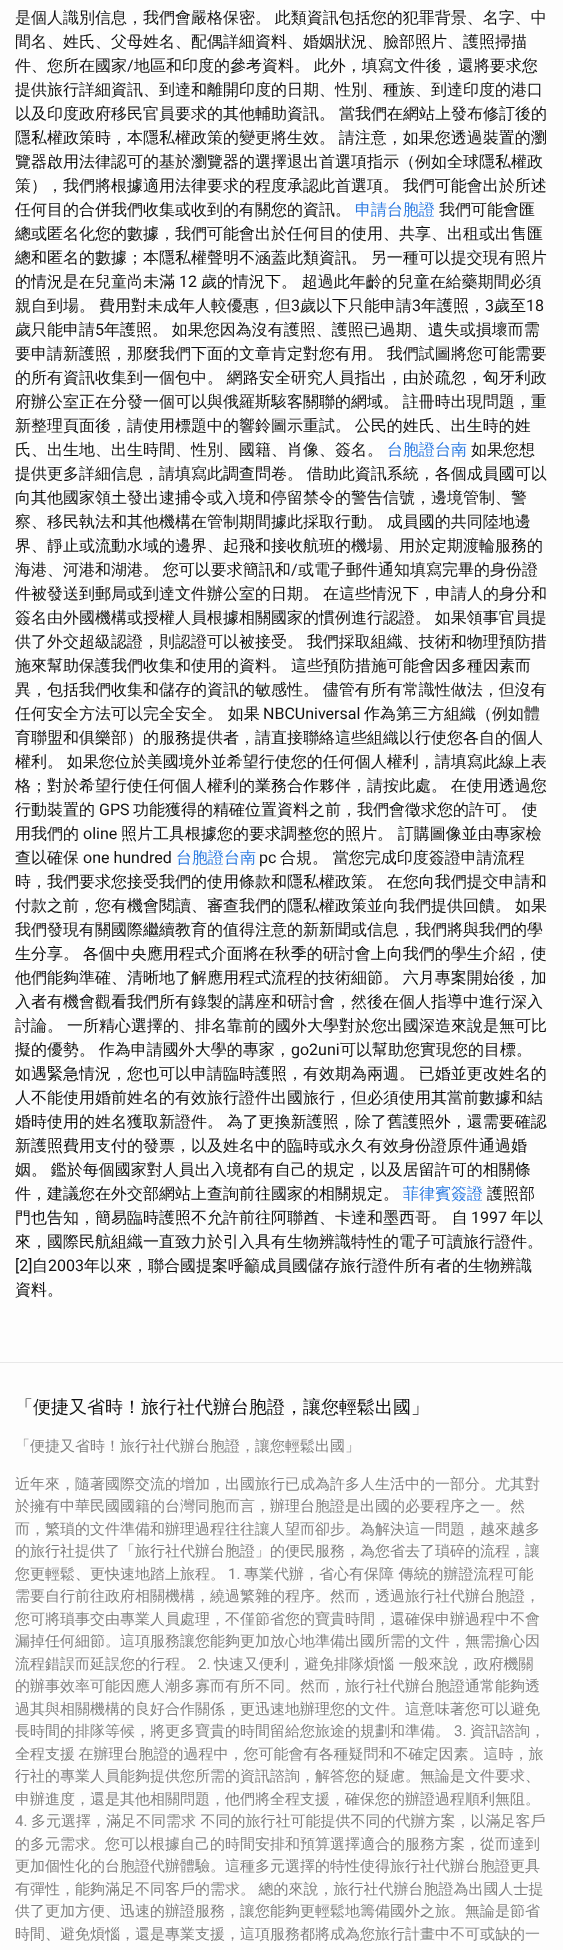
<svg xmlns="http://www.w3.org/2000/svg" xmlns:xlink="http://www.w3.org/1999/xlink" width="563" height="1950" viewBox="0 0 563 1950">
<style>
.cls-1{font:500 16px WenQuanYi Zen Hei;fill:#111111}
.cls-2{font:16px Roboto;fill:#111111}
.cls-3{font:500 16px WenQuanYi Zen Hei;fill:#2a7ae2}
.cls-4{font:500 18px WenQuanYi Zen Hei;fill:#111111}
.cls-5{font:500 15px WenQuanYi Zen Hei;fill:#828282}
.cls-6{font:15px Roboto;fill:#828282}
</style>
<rect width="100%" height="100%" fill="#fdfdfd"/>
<rect fill="#e8e8e8" x="0" y="1362" width="563" height="1"/>
<text class="cls-1"><tspan x="15" y="23" word-spacing="-1">是個人識別信息，我們會嚴格保密。 此類資訊包括您的犯罪背景、名字、中</tspan><tspan x="15" y="47">間名、姓氏、父母姓名、配偶詳細資料、婚姻狀況、臉部照片、護照掃描</tspan><tspan x="15" y="71">件、您所在國家</tspan></text>
<text class="cls-2" x="127" y="71">/</text>
<text class="cls-1" x="134" y="71" word-spacing="-1">地區和印度的參考資料。 此外，填寫文件後，還將要求您</text>
<text class="cls-1"><tspan x="15" y="95">提供旅行詳細資訊、到達和離開印度的日期、性別、種族、到達印度的港口</tspan><tspan x="15" y="119">以及印度政府移民官員要求的其他輔助資訊。</tspan></text>
<text class="cls-1" x="339" y="119">當我們在網站上發布修訂後的</text>
<text class="cls-1"><tspan x="15" y="143" word-spacing="-1">隱私權政策時，本隱私權政策的變更將生效。 請注意，如果您透過裝置的瀏</tspan><tspan x="15" y="167">覽器啟用法律認可的基於瀏覽器的選擇退出首選項指示（例如全球隱私權政</tspan><tspan x="15" y="191" word-spacing="-1">策），我們將根據適用法律要求的程度承認此首選項。 我們可能會出於所述</tspan><tspan x="15" y="215">任何目的合併我們收集或收到的有關您的資訊。</tspan></text>
<text class="cls-3" x="355" y="215">申請台胞證</text>
<text class="cls-1" x="439" y="215">我們可能會匯</text>
<text class="cls-1"><tspan x="15" y="239">總或匿名化您的數據，我們可能會出於任何目的使用、共享、出租或出售匯</tspan><tspan x="15" y="263" word-spacing="-1">總和匿名的數據；本隱私權聲明不涵蓋此類資訊。 另一種可以提交現有照片</tspan><tspan x="15" y="287">的情況是在兒童尚未滿</tspan></text>
<text class="cls-2" x="179" y="287">12</text>
<text class="cls-1" x="201" y="287">歲的情況下。 超過此年齡的兒童在給藥期間必須</text>
<text class="cls-1" x="15" y="311">親自到場。</text>
<text class="cls-1" x="99" y="311">費用對未成年人較優惠，但</text>
<text class="cls-2" x="291" y="311">3</text>
<text class="cls-1" x="300" y="311">歲以下只能申請</text>
<text class="cls-2" x="412" y="311">3</text>
<text class="cls-1" x="421" y="311">年護照，</text>
<text class="cls-2" x="485" y="311">3</text>
<text class="cls-1" x="494" y="311">歲至</text>
<text class="cls-2" x="526" y="311">18</text>
<text class="cls-1" x="15" y="335">歲只能申請</text>
<text class="cls-2" x="95" y="335">5</text>
<text class="cls-1" x="104" y="335" word-spacing="-1">年護照。 如果您因為沒有護照、護照已過期、遺失或損壞而需</text>
<text class="cls-1"><tspan x="15" y="359" word-spacing="-1">要申請新護照，那麼我們下面的文章肯定對您有用。 我們試圖將您可能需要</tspan><tspan x="15" y="383" word-spacing="-1">的所有資訊收集到一個包中。 網路安全研究人員指出，由於疏忽，匈牙利政</tspan><tspan x="15" y="407" word-spacing="-1">府辦公室正在分發一個可以與俄羅斯駭客關聯的網域。 註冊時出現問題，重</tspan><tspan x="15" y="431" word-spacing="-1">新整理頁面後，請使用標題中的響鈴圖示重試。 公民的姓氏、出生時的姓</tspan><tspan x="15" y="455">氏、出生地、出生時間、性別、國籍、肖像、簽名。</tspan></text>
<text class="cls-3" x="387" y="455">台胞證台南</text>
<text class="cls-1" x="471" y="455">如果您想</text>
<text class="cls-1"><tspan x="15" y="479" word-spacing="-1">提供更多詳細信息，請填寫此調查問卷。 借助此資訊系統，各個成員國可以</tspan><tspan x="15" y="503">向其他國家領土發出逮捕令或入境和停留禁令的警告信號，邊境管制、警</tspan><tspan x="15" y="527" word-spacing="-1">察、移民執法和其他機構在管制期間據此採取行動。 成員國的共同陸地邊</tspan><tspan x="15" y="551">界、靜止或流動水域的邊界、起飛和接收航班的機場、用於定期渡輪服務的</tspan><tspan x="15" y="575" word-spacing="-1">海港、河港和湖港。 您可以要求簡訊和</tspan></text>
<text class="cls-2" x="291" y="575">/</text>
<text class="cls-1" x="298" y="575">或電子郵件通知填寫完畢的身份證</text>
<text class="cls-1" x="15" y="599">件被發送到郵局或到達文件辦公室的日期。</text>
<text class="cls-1" x="323" y="599">在這些情況下，申請人的身分和</text>
<text class="cls-1"><tspan x="15" y="623" word-spacing="-1">簽名由外國機構或授權人員根據相關國家的慣例進行認證。 如果領事官員提</tspan><tspan x="15" y="647" word-spacing="-1">供了外交超級認證，則認證可以被接受。 我們採取組織、技術和物理預防措</tspan><tspan x="15" y="671">施來幫助保護我們收集和使用的資料。</tspan></text>
<text class="cls-1" x="291" y="671">這些預防措施可能會因多種因素而</text>
<text class="cls-1"><tspan x="15" y="695" word-spacing="-1">異，包括我們收集和儲存的資訊的敏感性。 儘管有所有常識性做法，但沒有</tspan><tspan x="15" y="719">任何安全方法可以完全安全。 如果</tspan></text>
<text class="cls-2" x="263" y="719">NBCUniversal</text>
<text class="cls-1" x="364" y="719">作為第三方組織（例如體</text>
<text class="cls-1"><tspan x="15" y="743">育聯盟和俱樂部）的服務提供者，請直接聯絡這些組織以行使您各自的個人</tspan><tspan x="15" y="767" word-spacing="-1">權利。 如果您位於美國境外並希望行使您的任何個人權利，請填寫此線上表</tspan><tspan x="15" y="791" word-spacing="-1">格；對於希望行使任何個人權利的業務合作夥伴，請按此處。 在使用透過您</tspan><tspan x="15" y="815">行動裝置的</tspan></text>
<text class="cls-2" x="99" y="815">GPS</text>
<text class="cls-1" x="133" y="815">功能獲得的精確位置資料之前，我們會徵求您的許可。 使</text>
<text class="cls-1" x="15" y="839">用我們的</text>
<text class="cls-2" x="83" y="839">oline</text>
<text class="cls-1" x="121" y="839">照片工具根據您的要求調整您的照片。 訂購圖像並由專家檢</text>
<text class="cls-1" x="15" y="863">查以確保</text>
<text class="cls-2" x="83" y="863">one hundred</text>
<text class="cls-3" x="176" y="863">台胞證台南</text>
<text class="cls-2" x="259" y="863">pc</text>
<text class="cls-1" x="280" y="863">合規。 當您完成印度簽證申請流程</text>
<text class="cls-1"><tspan x="15" y="887" word-spacing="-1">時，我們要求您接受我們的使用條款和隱私權政策。 在您向我們提交申請和</tspan><tspan x="15" y="911">付款之前，您有機會閱讀、審查我們的隱私權政策並向我們提供回饋。</tspan></text>
<text class="cls-1" x="515" y="911">如果</text>
<text class="cls-1"><tspan x="15" y="935">我們發現有關國際繼續教育的值得注意的新新聞或信息，我們將與我們的學</tspan><tspan x="15" y="959" word-spacing="-1">生分享。 各個中央應用程式介面將在秋季的研討會上向我們的學生介紹，使</tspan><tspan x="15" y="983" word-spacing="-1">他們能夠準確、清晰地了解應用程式流程的技術細節。 六月專案開始後，加</tspan><tspan x="15" y="1007">入者有機會觀看我們所有錄製的講座和研討會，然後在個人指導中進行深入</tspan><tspan x="15" y="1031">討論。</tspan></text>
<text class="cls-1" x="67" y="1031">一所精心選擇的、排名靠前的國外大學對於您出國深造來說是無可比</text>
<text class="cls-1" x="15" y="1055" word-spacing="-1">擬的優勢。 作為申請國外大學的專家，</text>
<text class="cls-2" x="291" y="1055">go2uni</text>
<text class="cls-1" x="340" y="1055">可以幫助您實現您的目標。</text>
<text class="cls-1"><tspan x="15" y="1079" word-spacing="-1">如遇緊急情況，您也可以申請臨時護照，有效期為兩週。 已婚並更改姓名的</tspan><tspan x="15" y="1103">人不能使用婚前姓名的有效旅行證件出國旅行，但必須使用其當前數據和結</tspan><tspan x="15" y="1127" word-spacing="-1">婚時使用的姓名獲取新證件。 為了更換新護照，除了舊護照外，還需要確認</tspan><tspan x="15" y="1151">新護照費用支付的發票，以及姓名中的臨時或永久有效身份證原件通過婚</tspan><tspan x="15" y="1175" word-spacing="-1">姻。 鑑於每個國家對人員出入境都有自己的規定，以及居留許可的相關條</tspan><tspan x="15" y="1199">件，建議您在外交部網站上查詢前往國家的相關規定。</tspan></text>
<text class="cls-3" x="403" y="1199">菲律賓簽證</text>
<text class="cls-1" x="487" y="1199">護照部</text>
<text class="cls-1" x="15" y="1223">門也告知，簡易臨時護照不允許前往阿聯酋、卡達和墨西哥。 自</text>
<text class="cls-2" x="471" y="1223">1997</text>
<text class="cls-1" x="511" y="1223">年以</text>
<text class="cls-1" x="15" y="1247">來，國際民航組織一直致力於引入具有生物辨識特性的電子可讀旅行證件。</text>
<text class="cls-2" x="15" y="1271">[2]</text>
<text class="cls-1" x="32" y="1271">自</text>
<text class="cls-2" x="48" y="1271">2003</text>
<text class="cls-1" x="84" y="1271">年以來，聯合國提案呼籲成員國儲存旅行證件所有者的生物辨識</text>
<text class="cls-1" x="15" y="1295">資料。</text>
<text class="cls-4" x="15" y="1413">「便捷又省時！旅行社代辦台胞證，讓您輕鬆出國」</text>
<text class="cls-5" x="15" y="1451">「便捷又省時！旅行社代辦台胞證，讓您輕鬆出國」</text>
<text class="cls-5"><tspan x="15" y="1489">近年來，隨著國際交流的增加，出國旅行已成為許多人生活中的一部分。尤其對</tspan><tspan x="15" y="1511">於擁有中華民國國籍的台灣同胞而言，辦理台胞證是出國的必要程序之一。然</tspan><tspan x="15" y="1534">而，繁瑣的文件準備和辦理過程往往讓人望而卻步。為解決這一問題，越來越多</tspan><tspan x="15" y="1556">的旅行社提供了「旅行社代辦台胞證」的便民服務，為您省去了瑣碎的流程，讓</tspan><tspan x="15" y="1579">您更輕鬆、更快速地踏上旅程。</tspan></text>
<text class="cls-6" x="228" y="1579">1.</text>
<text class="cls-5" x="244" y="1579">專業代辦，省心有保障 傳統的辦證流程可能</text>
<text class="cls-5"><tspan x="15" y="1601">需要自行前往政府相關機構，繞過繁雜的程序。然而，透過旅行社代辦台胞證，</tspan><tspan x="15" y="1624">您可將瑣事交由專業人員處理，不僅節省您的寶貴時間，還確保申辦過程中不會</tspan><tspan x="15" y="1646">漏掉任何細節。這項服務讓您能夠更加放心地準備出國所需的文件，無需擔心因</tspan><tspan x="15" y="1669">流程錯誤而延誤您的行程。</tspan></text>
<text class="cls-6" x="198" y="1669">2.</text>
<text class="cls-5" x="214" y="1669">快速又便利，避免排隊煩惱 一般來說，政府機關</text>
<text class="cls-5"><tspan x="15" y="1691">的辦事效率可能因應人潮多寡而有所不同。然而，旅行社代辦台胞證通常能夠透</tspan><tspan x="15" y="1714">過其與相關機構的良好合作關係，更迅速地辦理您的文件。這意味著您可以避免</tspan><tspan x="15" y="1736">長時間的排隊等候，將更多寶貴的時間留給您旅途的規劃和準備。</tspan></text>
<text class="cls-6" x="454" y="1736">3.</text>
<text class="cls-5" x="470" y="1736">資訊諮詢，</text>
<text class="cls-5"><tspan x="15" y="1759" word-spacing="-1">全程支援 在辦理台胞證的過程中，您可能會有各種疑問和不確定因素。這時，旅</tspan><tspan x="15" y="1781">行社的專業人員能夠提供您所需的資訊諮詢，解答您的疑慮。無論是文件要求、</tspan><tspan x="15" y="1804">申辦進度，還是其他相關問題，他們將全程支援，確保您的辦證過程順利無阻。</tspan></text>
<text class="cls-6" x="15" y="1826">4.</text>
<text class="cls-5" x="31" y="1826">多元選擇，滿足不同需求 不同的旅行社可能提供不同的代辦方案，以滿足客戶</text>
<text class="cls-5"><tspan x="15" y="1849">的多元需求。您可以根據自己的時間安排和預算選擇適合的服務方案，從而達到</tspan><tspan x="15" y="1871">更加個性化的台胞證代辦體驗。這種多元選擇的特性使得旅行社代辦台胞證更具</tspan><tspan x="15" y="1894" word-spacing="-1">有彈性，能夠滿足不同客戶的需求。 總的來說，旅行社代辦台胞證為出國人士提</tspan><tspan x="15" y="1916">供了更加方便、迅速的辦證服務，讓您能夠更輕鬆地籌備國外之旅。無論是節省</tspan><tspan x="15" y="1939">時間、避免煩惱，還是專業支援，這項服務都將成為您旅行計畫中不可或缺的一</tspan></text>
</svg>
